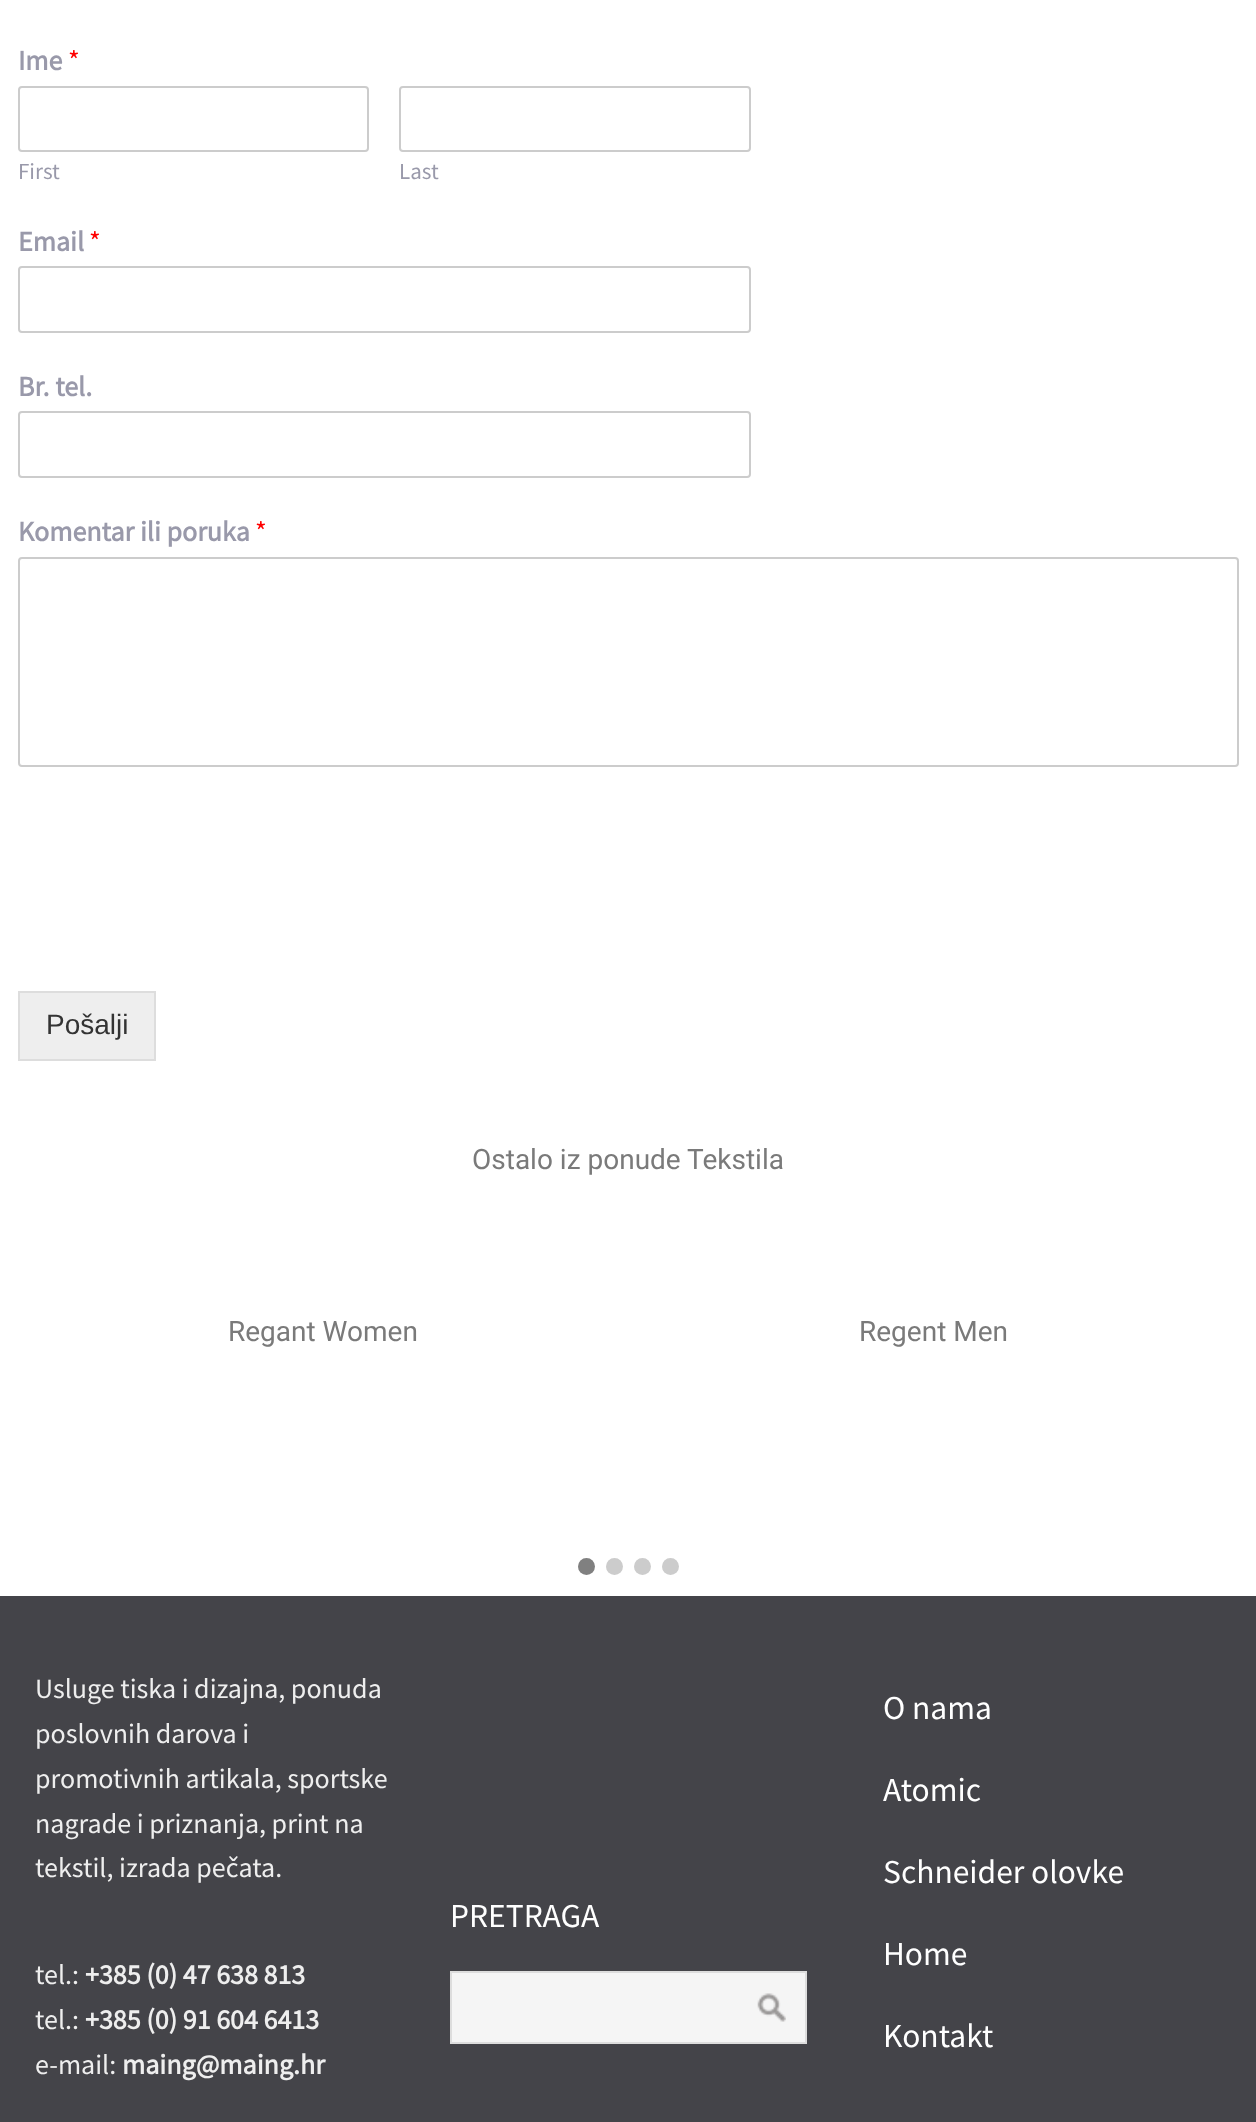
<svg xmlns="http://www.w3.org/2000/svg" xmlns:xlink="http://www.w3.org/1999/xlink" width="1256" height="2122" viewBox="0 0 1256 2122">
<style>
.cls-1{font:bold 28px Source Sans Pro;fill:#9999aa}
.cls-2{font:28px Source Sans Pro;fill:#ff0000}
.cls-3{font:23px Source Sans Pro;fill:#9999aa}
.cls-4{font:28px Liberation Sans;fill:#333333}
.cls-5{font:28px Roboto;fill:#7a7a7a}
.cls-6{font:28px Source Sans Pro;fill:#eeeeee}
.cls-7{font:bold 28px Source Sans Pro;fill:#eeeeee}
.cls-8{font:33.5px Source Sans Pro;fill:#ffffff}
</style>
<rect width="100%" height="100%" fill="#ffffff"/>
<rect fill="none" stroke="#cccccc" stroke-width="2" x="19" y="87" width="349" height="64" rx="3"/>
<rect fill="none" stroke="#cccccc" stroke-width="2" x="400" y="87" width="350" height="64" rx="3"/>
<rect fill="none" stroke="#cccccc" stroke-width="2" x="19" y="267" width="731" height="65" rx="3"/>
<rect fill="none" stroke="#cccccc" stroke-width="2" x="19" y="412" width="731" height="65" rx="3"/>
<rect fill="none" stroke="#cccccc" stroke-width="2" x="19" y="558" width="1219" height="208" rx="3"/>
<rect fill="#eeeeee" stroke="#dddddd" stroke-width="2" x="19" y="992" width="136" height="68"/>
<circle fill="#808080" cx="586.5" cy="1566.5" r="8.5"/>
<circle fill="#cccccc" cx="614.5" cy="1566.5" r="8.5"/>
<circle fill="#cccccc" cx="642.5" cy="1566.5" r="8.5"/>
<circle fill="#cccccc" cx="670.5" cy="1566.5" r="8.5"/>
<rect fill="#444449" x="0" y="1596" width="1256" height="526"/>
<rect fill="#f5f5f5" stroke="#dddddd" stroke-width="2" x="451" y="1972" width="355" height="71"/>
<image xlink:href="image0.png" x="757" y="1993" width="29" height="29"/>
<text class="cls-1" x="18" y="70">Ime</text>
<text class="cls-2" x="68" y="70">*</text>
<text class="cls-3" x="18" y="179">First</text>
<text class="cls-3" x="399" y="179">Last</text>
<text class="cls-1" x="18" y="251">Email</text>
<text class="cls-2" x="89" y="251">*</text>
<text class="cls-1" x="18" y="396">Br. tel.</text>
<text class="cls-1" x="18" y="541">Komentar ili poruka</text>
<text class="cls-2" x="255" y="541">*</text>
<text class="cls-4" x="46" y="1034">Pošalji</text>
<text class="cls-5" x="472" y="1169">Ostalo iz ponude Tekstila</text>
<text class="cls-5" x="228" y="1341">Regant Women</text>
<text class="cls-5" x="859" y="1341">Regent Men</text>
<text class="cls-6"><tspan x="35" y="1698">Usluge tiska i dizajna, ponuda</tspan><tspan x="35" y="1743">poslovnih darova i</tspan><tspan x="35" y="1788">promotivnih artikala, sportske</tspan><tspan x="35" y="1833">nagrade i priznanja, print na</tspan><tspan x="35" y="1877">tekstil, izrada pečata.</tspan></text>
<text class="cls-6" x="35" y="1984">tel.:</text>
<text class="cls-7" x="85" y="1984">+385 (0) 47 638 813</text>
<text class="cls-6" x="35" y="2029">tel.:</text>
<text class="cls-7" x="85" y="2029">+385 (0) 91 604 6413</text>
<text class="cls-6" x="35" y="2074">e-mail:</text>
<text class="cls-7" x="122" y="2074">maing@maing.hr</text>
<text class="cls-8" x="450" y="1927">PRETRAGA</text>
<text class="cls-8" x="883" y="1719">O nama</text>
<text class="cls-8" x="883" y="1801">Atomic</text>
<text class="cls-8" x="883" y="1883">Schneider olovke</text>
<text class="cls-8" x="883" y="1965">Home</text>
<text class="cls-8" x="883" y="2047">Kontakt</text>
</svg>
